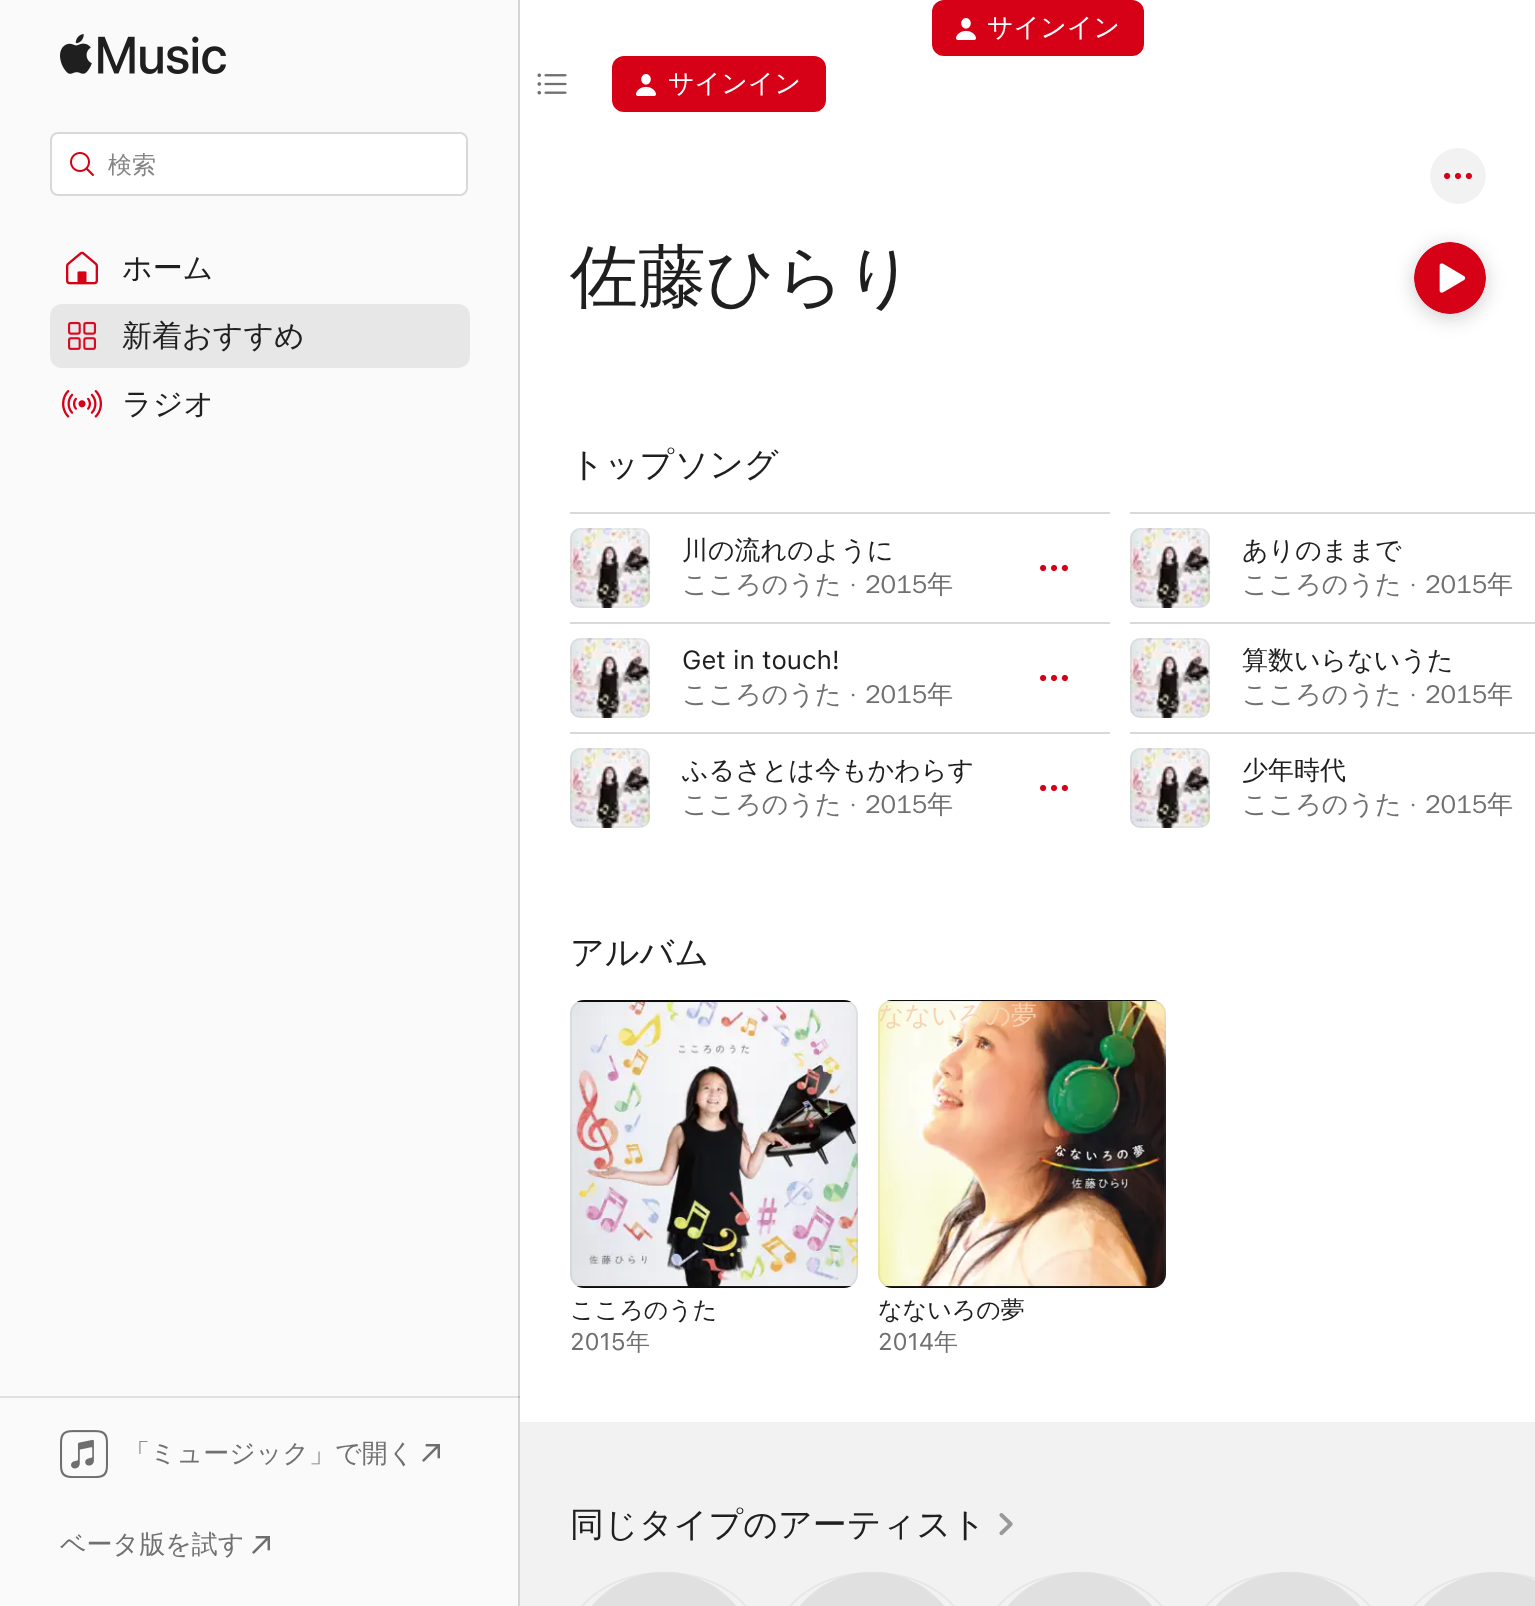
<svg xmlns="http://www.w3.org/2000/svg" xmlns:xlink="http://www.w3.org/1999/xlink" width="1535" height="1606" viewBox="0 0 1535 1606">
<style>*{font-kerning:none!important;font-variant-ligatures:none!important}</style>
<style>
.cls-1{font:500 26px WenQuanYi Zen Hei;fill:#ffffff}
.cls-2{font:500 24px WenQuanYi Zen Hei;fill:#858585}
.cls-3{font:500 30px WenQuanYi Zen Hei;fill:#1f1f1f}
.cls-4{font:500 26px WenQuanYi Zen Hei;fill:#707070}
.cls-5{font:500 68px WenQuanYi Zen Hei;fill:#1f1f1f}
.cls-6{font:500 34px WenQuanYi Zen Hei;fill:#1f1f1f}
.cls-7{font:500 26px WenQuanYi Zen Hei;fill:#1f1f1f}
.cls-8{font:26px SF;fill:#1f1f1f}
.cls-9{font:500 24px WenQuanYi Zen Hei;fill:#1f1f1f}
.cls-10{font:24px SF;fill:#707070}
.cls-11{font:500 24px WenQuanYi Zen Hei;fill:#707070}
.cls-12{font:500 26px WenQuanYi Zen Hei;fill:#f6d4b2}
</style>
<rect width="100%" height="100%" fill="#ffffff"/>
<rect fill="#d60017" x="932" y="0" width="212" height="56" rx="12"/>
<image xlink:href="image0.png" x="956" y="18" width="20" height="22"/>
<image xlink:href="image1.png" x="537" y="73" width="30" height="22"/>
<rect fill="#d60017" x="612" y="56" width="214" height="56" rx="12"/>
<image xlink:href="image0.png" x="636" y="74" width="20" height="22"/>
<rect fill="#fafafa" x="0" y="0" width="518" height="1606"/>
<rect fill="#e1e1e1" x="0" y="1396" width="520" height="2"/>
<rect fill="#d5d5d5" x="518" y="0" width="2" height="1606"/>
<rect fill="#c0c0c0" x="518" y="1396" width="2" height="2"/>
<image xlink:href="image2.png" x="60" y="34" width="166" height="40"/>
<rect fill="#ffffff" stroke="#d9d9d9" stroke-width="2" x="51" y="133" width="416" height="62" rx="7"/>
<image xlink:href="image3.png" x="70" y="152" width="24" height="24"/>
<image xlink:href="image4.png" x="66" y="251" width="32" height="34"/>
<rect fill="#e7e7e8" x="50" y="304" width="420" height="64" rx="12"/>
<image xlink:href="image5.png" x="68" y="321" width="28" height="29"/>
<image xlink:href="image6.png" x="62" y="390" width="40" height="28"/>
<image xlink:href="image7.png" x="60" y="1430" width="48" height="48"/>
<image xlink:href="image8.png" x="422" y="1444" width="18" height="18"/>
<image xlink:href="image8.png" x="252" y="1536" width="18" height="18"/>
<image xlink:href="image9.png" x="1430" y="148" width="56" height="56"/>
<rect fill="#000000" fill-opacity="0.2" filter="blur(10px)" x="1414" y="246" width="72" height="72" rx="36"/>
<image xlink:href="image10.png" x="1414" y="242" width="72" height="72"/>
<rect fill="#d9d9d9" x="570" y="512" width="540" height="2"/>
<image xlink:href="image11.png" x="570" y="528" width="80" height="80"/>
<rect fill="none" stroke="#808080" stroke-opacity="0.1" stroke-width="2" x="571" y="529" width="78" height="78" rx="9"/>
<image xlink:href="image12.png" x="1040" y="564" width="28" height="8"/>
<rect fill="#d9d9d9" x="1130" y="512" width="405" height="2"/>
<image xlink:href="image13.png" x="1130" y="528" width="80" height="80"/>
<rect fill="none" stroke="#808080" stroke-opacity="0.1" stroke-width="2" x="1131" y="529" width="78" height="78" rx="9"/>
<rect fill="#d9d9d9" x="570" y="622" width="540" height="2"/>
<image xlink:href="image11.png" x="570" y="638" width="80" height="80"/>
<rect fill="none" stroke="#808080" stroke-opacity="0.1" stroke-width="2" x="571" y="639" width="78" height="78" rx="9"/>
<image xlink:href="image12.png" x="1040" y="674" width="28" height="8"/>
<rect fill="#d9d9d9" x="1130" y="622" width="405" height="2"/>
<image xlink:href="image13.png" x="1130" y="638" width="80" height="80"/>
<rect fill="none" stroke="#808080" stroke-opacity="0.1" stroke-width="2" x="1131" y="639" width="78" height="78" rx="9"/>
<rect fill="#d9d9d9" x="570" y="732" width="540" height="2"/>
<image xlink:href="image14.png" x="570" y="748" width="80" height="80"/>
<rect fill="none" stroke="#808080" stroke-opacity="0.1" stroke-width="2" x="571" y="749" width="78" height="78" rx="9"/>
<image xlink:href="image12.png" x="1040" y="784" width="28" height="8"/>
<rect fill="#d9d9d9" x="1130" y="732" width="405" height="2"/>
<image xlink:href="image13.png" x="1130" y="748" width="80" height="80"/>
<rect fill="none" stroke="#808080" stroke-opacity="0.1" stroke-width="2" x="1131" y="749" width="78" height="78" rx="9"/>
<image xlink:href="image15.png" x="570" y="1000" width="288" height="288"/>
<rect fill="none" stroke="#808080" stroke-opacity="0.1" stroke-width="2" x="571" y="1001" width="286" height="286" rx="13"/>
<image xlink:href="image16.png" x="878" y="1000" width="288" height="288"/>
<rect fill="none" stroke="#808080" stroke-opacity="0.1" stroke-width="2" x="879" y="1001" width="286" height="286" rx="13"/>
<rect fill="#f2f2f2" x="520" y="1422" width="1015" height="184"/>
<image xlink:href="image17.png" x="999" y="1513" width="14" height="23"/>
<rect fill="none" stroke="#e7e7e7" stroke-width="2" x="571" y="1573" width="186" height="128" rx="93"/>
<path fill="#e0e0e0" d="M664 1572C716 1572 758 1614 758 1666C758 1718 716 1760 664 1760C612 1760 570 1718 570 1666C570 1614 612 1572 664 1572Z"/>
<rect fill="none" stroke="#e7e7e7" stroke-width="2" x="779" y="1573" width="186" height="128" rx="93"/>
<path fill="#e0e0e0" d="M872 1572C924 1572 966 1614 966 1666C966 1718 924 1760 872 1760C820 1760 778 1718 778 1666C778 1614 820 1572 872 1572Z"/>
<rect fill="none" stroke="#e7e7e7" stroke-width="2" x="987" y="1573" width="186" height="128" rx="93"/>
<path fill="#e0e0e0" d="M1080 1572C1132 1572 1174 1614 1174 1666C1174 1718 1132 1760 1080 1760C1028 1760 986 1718 986 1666C986 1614 1028 1572 1080 1572Z"/>
<rect fill="none" stroke="#e7e7e7" stroke-width="2" x="1195" y="1573" width="186" height="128" rx="93"/>
<path fill="#e0e0e0" d="M1288 1572C1340 1572 1382 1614 1382 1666C1382 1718 1340 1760 1288 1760C1236 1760 1194 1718 1194 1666C1194 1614 1236 1572 1288 1572Z"/>
<rect fill="none" stroke="#e7e7e7" stroke-width="2" x="1403" y="1573" width="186" height="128" rx="93"/>
<path fill="#e0e0e0" d="M1496 1572C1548 1572 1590 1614 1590 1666C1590 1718 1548 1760 1496 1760C1444 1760 1402 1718 1402 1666C1402 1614 1444 1572 1496 1572Z"/>
<text class="cls-1" x="987" y="36">サインイン</text>
<text class="cls-1" x="668" y="92">サインイン</text>
<text class="cls-2" x="108" y="173">検索</text>
<text class="cls-3" x="122" y="278">ホーム</text>
<text class="cls-3" x="122" y="346">新着おすすめ</text>
<text class="cls-3" x="122" y="414">ラジオ</text>
<text class="cls-4" x="124" y="1462">「ミュージック」で開く</text>
<text class="cls-4" x="60" y="1553">ベータ版を試す</text>
<text class="cls-5" x="570" y="300">佐藤ひらり</text>
<text class="cls-6" x="570" y="476">トップソング</text>
<text class="cls-7" x="682" y="559">川の流れのように</text>
<text class="cls-4" x="682" y="593">こころのうた</text>
<text class="cls-4" x="850" y="593">·</text>
<text class="cls-4" x="865" y="593">2015年</text>
<text class="cls-7" x="1242" y="559">ありのままで</text>
<text class="cls-4" x="1242" y="593">こころのうた</text>
<text class="cls-4" x="1410" y="593">·</text>
<text class="cls-4" x="1425" y="593">2015年</text>
<text class="cls-8" x="682" y="669">Get in touch!</text>
<text class="cls-4" x="682" y="703">こころのうた</text>
<text class="cls-4" x="850" y="703">·</text>
<text class="cls-4" x="865" y="703">2015年</text>
<text class="cls-7" x="1242" y="669">算数いらないうた</text>
<text class="cls-4" x="1242" y="703">こころのうた</text>
<text class="cls-4" x="1410" y="703">·</text>
<text class="cls-4" x="1425" y="703">2015年</text>
<text class="cls-7" x="682" y="779">ふるさとは今もかわらず</text>
<text class="cls-4" x="682" y="813">こころのうた</text>
<text class="cls-4" x="850" y="813">·</text>
<text class="cls-4" x="865" y="813">2015年</text>
<text class="cls-7" x="1242" y="779">少年時代</text>
<text class="cls-4" x="1242" y="813">こころのうた</text>
<text class="cls-4" x="1410" y="813">·</text>
<text class="cls-4" x="1425" y="813">2015年</text>
<text class="cls-6" x="570" y="964">アルバム</text>
<text class="cls-9" x="570" y="1318">こころのうた</text>
<text class="cls-10" x="570" y="1350">2015</text>
<text class="cls-11" x="626" y="1350">年</text>
<text class="cls-12" x="878" y="1024">なないろの夢</text>
<text class="cls-9" x="878" y="1318">なないろの夢</text>
<text class="cls-10" x="878" y="1350">2014</text>
<text class="cls-11" x="934" y="1350">年</text>
<text class="cls-6" x="570" y="1536">同じタイプのアーティスト</text>
</svg>
